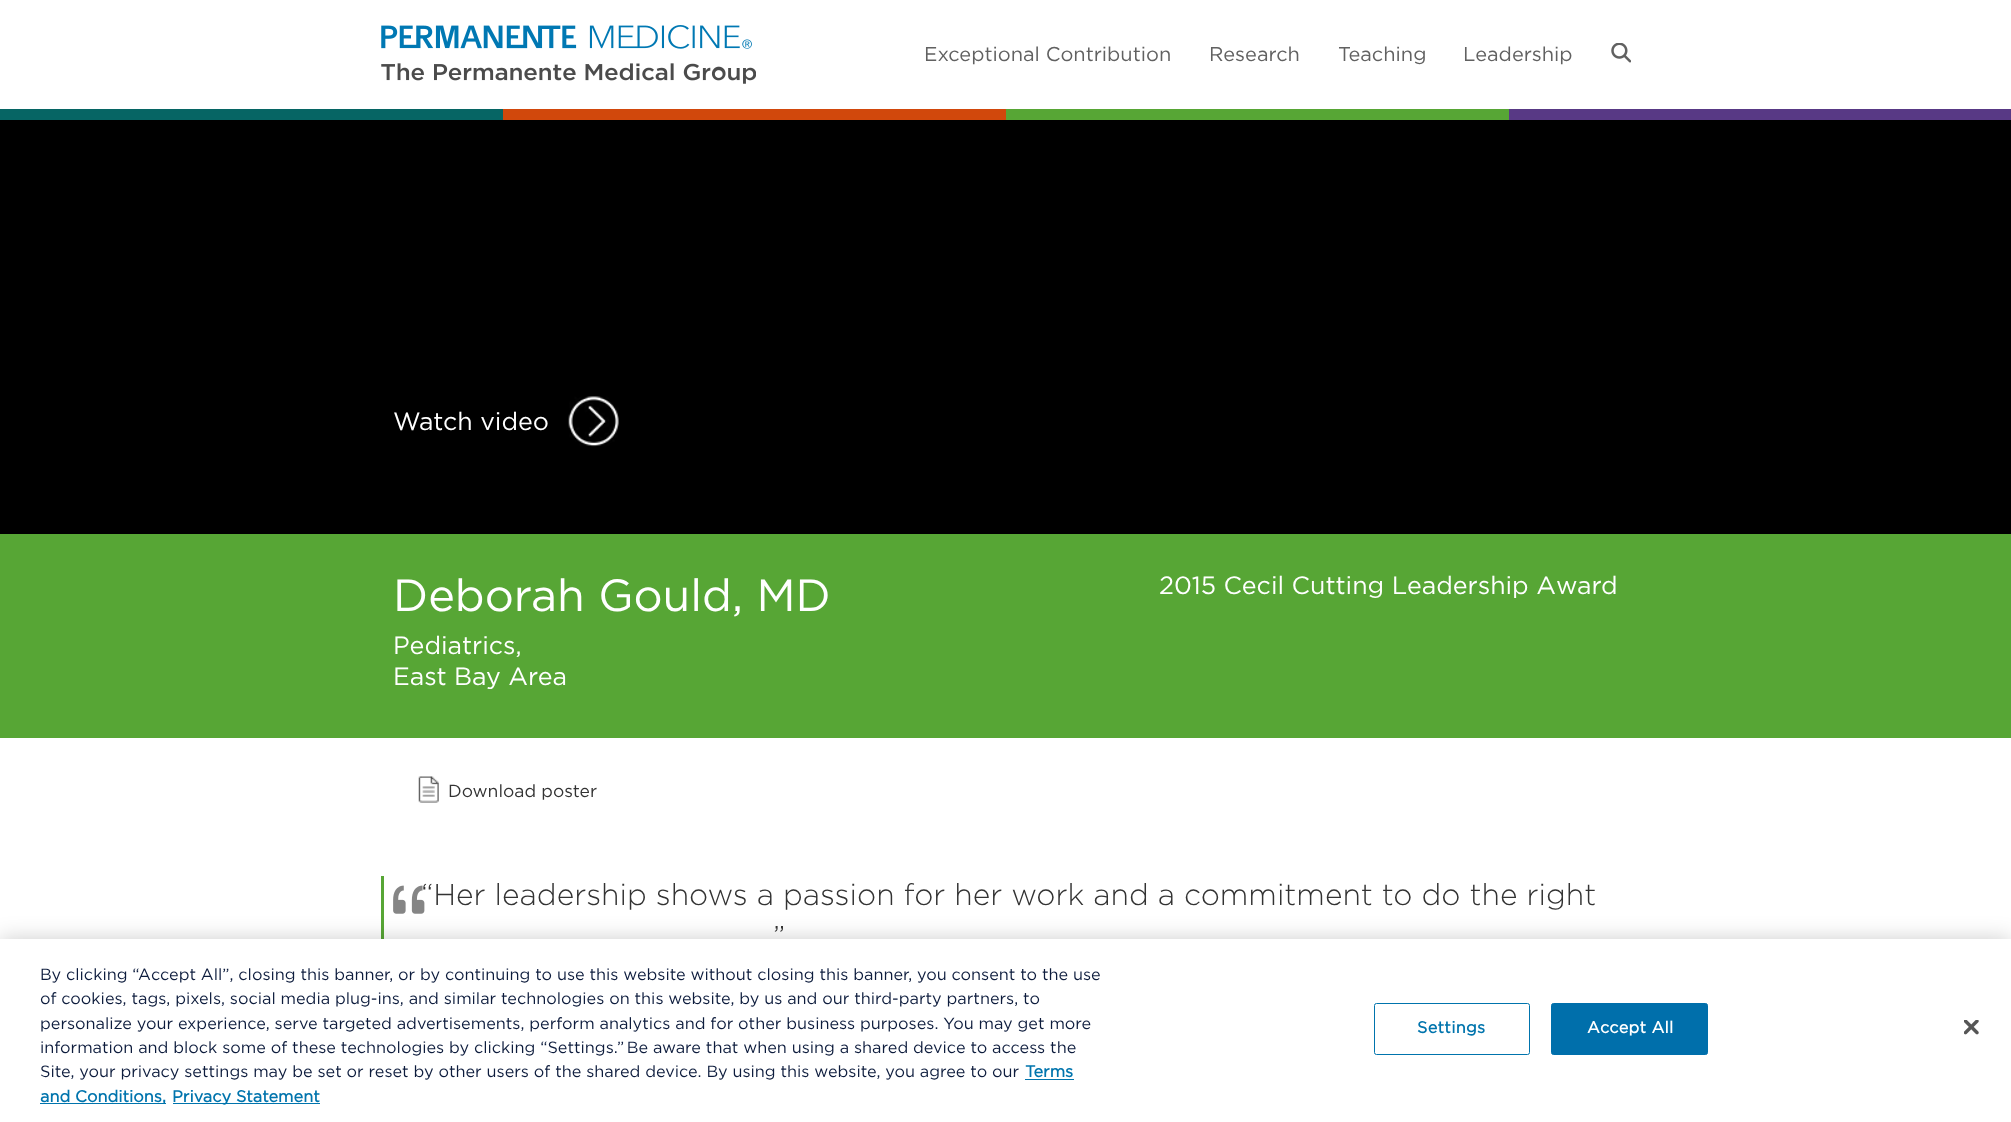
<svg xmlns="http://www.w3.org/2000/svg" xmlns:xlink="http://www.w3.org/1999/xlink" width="2011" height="1122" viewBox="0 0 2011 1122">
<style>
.cls-1{font:20px Gotham;fill:#616161}
.cls-2{font:25px Gotham;fill:#ffffff}
.cls-3{font:45px Gotham;fill:#ffffff}
.cls-4{font:17.5px Gotham;fill:#333333}
.cls-5{font:300 30px Gotham;fill:#333333}
.cls-6{font:16.25px Gotham;fill:#0d1c3d}
.cls-7{font:bold 16.25px Gotham;fill:#0074ad}
.cls-8{font:bold 16.25px Gotham;letter-spacing:0.25px;fill:#0074ad}
.cls-9{font:bold 16.25px Gotham;letter-spacing:0.25px;fill:#ffffff}
</style>
<rect width="100%" height="100%" fill="#ffffff"/>
<image xlink:href="image0.png" x="381" y="25" width="375" height="59"/>
<image xlink:href="image1.png" x="1611" y="43" width="20" height="20"/>
<rect fill="#066564" x="0" y="109" width="503" height="11"/>
<rect fill="#d1480c" x="503" y="109" width="503" height="11"/>
<rect fill="#57a635" x="1006" y="109" width="503" height="11"/>
<rect fill="#583985" x="1509" y="109" width="502" height="11"/>
<rect fill="#000000" x="0" y="120" width="2011" height="414"/>
<image xlink:href="image2.png" x="568" y="396" width="51" height="51"/>
<rect fill="#57a635" x="0" y="534" width="2011" height="204"/>
<image xlink:href="image3.png" x="418" y="776" width="21" height="27"/>
<rect fill="#57a635" x="381" y="876" width="3" height="63"/>
<text class="cls-1" x="924" y="61">Exceptional Contribution</text>
<text class="cls-1" x="1209" y="61">Research</text>
<text class="cls-1" x="1338" y="61">Teaching</text>
<text class="cls-1" x="1463" y="61">Leadership</text>
<text class="cls-2" x="393" y="430">Watch video</text>
<text class="cls-3" x="393" y="611">Deborah Gould, MD</text>
<text class="cls-2"><tspan x="393" y="654">Pediatrics,</tspan><tspan x="393" y="685">East Bay Area</tspan></text>
<text class="cls-2" x="1159" y="594">2015 Cecil Cutting Leadership Award</text>
<text class="cls-4" x="448" y="797">Download poster</text>
<text class="cls-5" x="421" y="905">“Her leadership shows a passion for her work and a commitment to do the right</text>
<image xlink:href="image4.png" x="393" y="885" width="32" height="29"/>
<text class="cls-5" x="773" y="947">”</text>
<rect fill="#000000" fill-opacity="0.2" filter="blur(11px)" x="0" y="939" width="2011" height="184"/>
<rect fill="#ffffff" x="0" y="939" width="2011" height="183"/>
<text class="cls-6"><tspan x="40" y="980">By clicking “Accept All”, closing this banner, or by continuing to use this website without closing this banner, you consent to the use</tspan><tspan x="40" y="1004">of cookies, tags, pixels, social media plug-ins, and similar technologies on this website, by us and our third-party partners, to</tspan><tspan x="40" y="1029">personalize your experience, serve targeted advertisements, perform analytics and for other business purposes. You may get more</tspan><tspan x="40" y="1053">information and block some of these technologies by clicking “Settings.” Be aware that when using a shared device to access the</tspan><tspan x="40" y="1077">Site, your privacy settings may be set or reset by other users of the shared device. By using this website, you agree to our</tspan></text>
<text class="cls-7" x="1025" y="1077">Terms</text>
<rect fill="#0074ad" x="1025" y="1079" width="49" height="1"/>
<rect fill="#0074ad" x="40" y="1103" width="126" height="1"/>
<text class="cls-7" x="40" y="1102">and Conditions,</text>
<rect fill="#0074ad" x="173" y="1103" width="147" height="1"/>
<text class="cls-7" x="172" y="1102">Privacy Statement</text>
<rect fill="none" stroke="#0074ad" x="1374.5" y="1003.5" width="155" height="51" rx="2"/>
<text class="cls-8" x="1417" y="1033">Settings</text>
<rect fill="#006fab" stroke="#006fab" x="1551.5" y="1003.5" width="156" height="51" rx="2"/>
<text class="cls-9" x="1587" y="1033">Accept All</text>
<image xlink:href="image5.png" x="1964" y="1020" width="15" height="15"/>
</svg>
